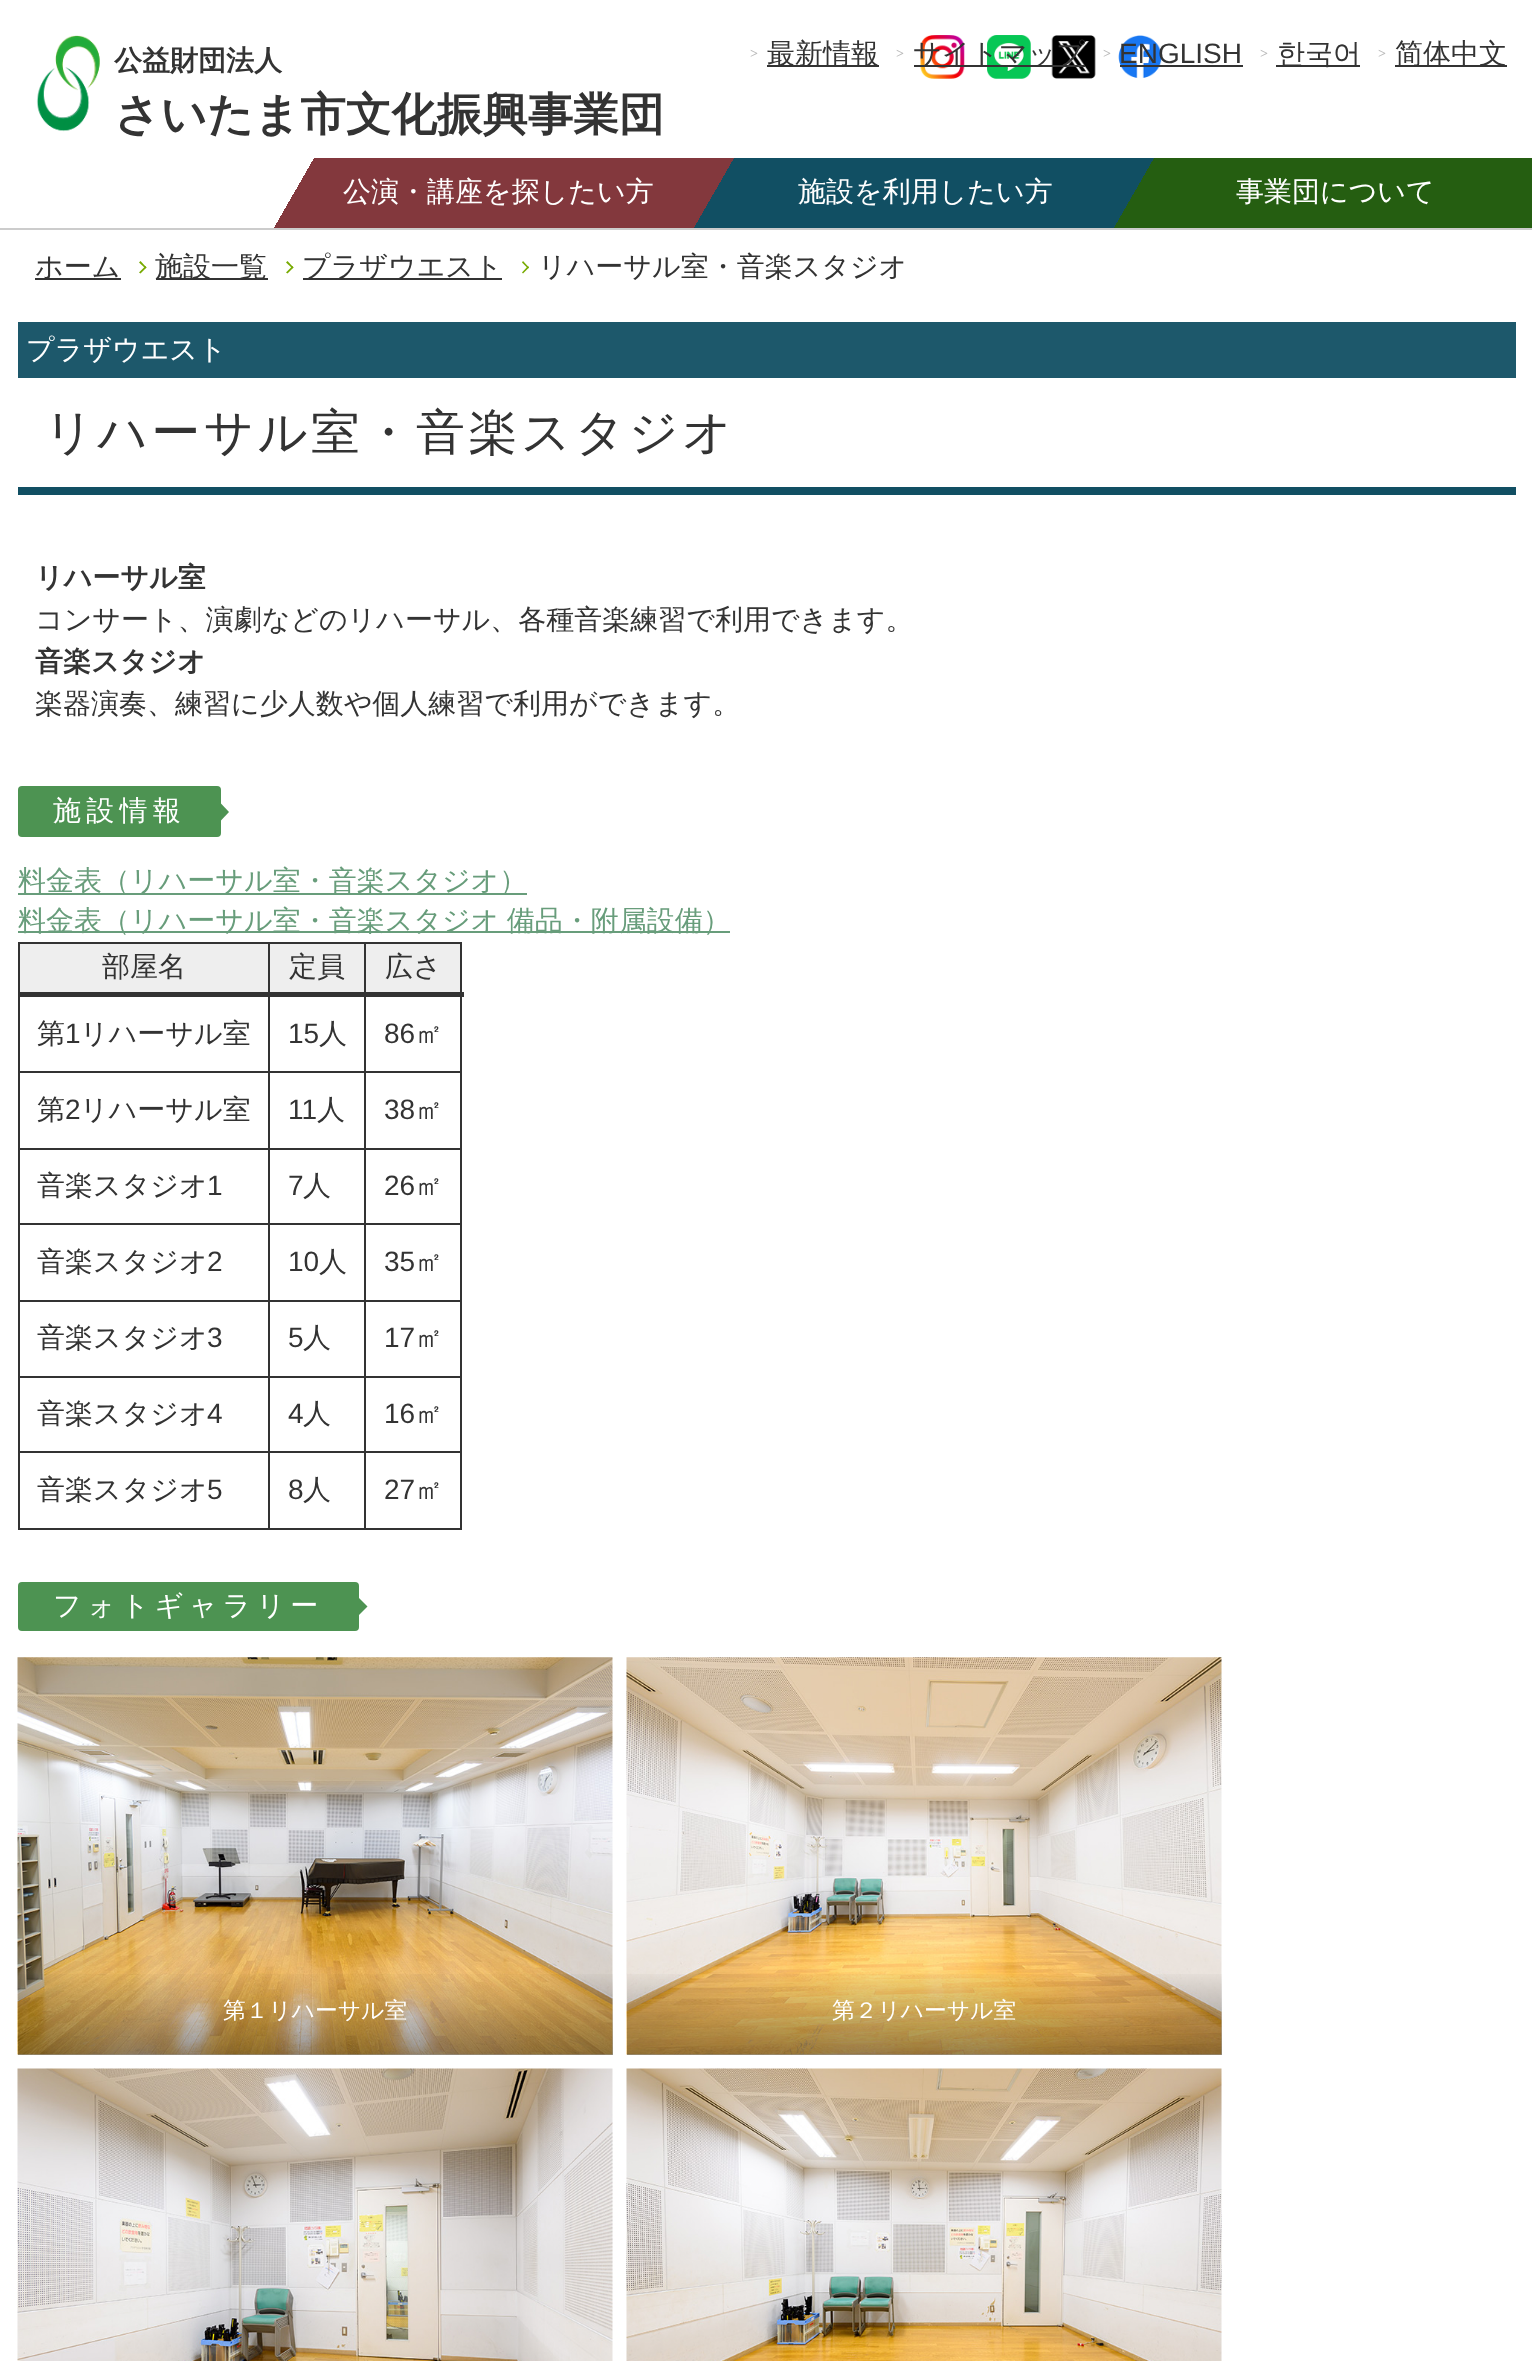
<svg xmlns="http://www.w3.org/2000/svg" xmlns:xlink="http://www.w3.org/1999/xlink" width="1532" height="2361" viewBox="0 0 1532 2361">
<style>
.cls-1{font:bold 28px WenQuanYi Zen Hei;fill:#333333}
.cls-2{font:bold 45.5px WenQuanYi Zen Hei;fill:#333333}
.cls-3{font:bold 14px Liberation Serif;fill:#bbbbbb}
.cls-4{font:500 28px WenQuanYi Zen Hei;fill:#333333}
.cls-5{font:28px Liberation Sans;fill:#333333}
.cls-6{font:500 28px WenQuanYi Zen Hei;fill:#ffffff}
.cls-7{font:500 49px WenQuanYi Zen Hei;letter-spacing:3.5px;fill:#333333}
.cls-8{font:500 28px WenQuanYi Zen Hei;letter-spacing:5.25px;fill:#ffffff}
.cls-9{font:500 28px WenQuanYi Zen Hei;fill:#689d7b}
.cls-10{font:500 22.75px WenQuanYi Zen Hei;fill:#ffffff}
</style>
<defs>
<linearGradient id="g1" gradientUnits="userSpaceOnUse" x1="310" y1="93" x2="656" y2="292"><stop offset="0.09" stop-color="#ffffff"/><stop offset="0.09" stop-color="#83383d"/></linearGradient>
<linearGradient id="g2" gradientUnits="userSpaceOnUse" x1="730" y1="93" x2="1076" y2="292"><stop offset="0.09" stop-color="#83383d"/><stop offset="0.09" stop-color="#114f63"/></linearGradient>
<linearGradient id="g3" gradientUnits="userSpaceOnUse" x1="1150" y1="93" x2="1496" y2="292"><stop offset="0.09" stop-color="#114f63"/><stop offset="0.09" stop-color="#255e11"/></linearGradient>
<linearGradient id="g4" gradientUnits="userSpaceOnUse" x1="315" y1="2055" x2="315" y2="1969"><stop offset="0" stop-color="#000000" stop-opacity="0.4"/><stop offset="1" stop-color="#000000" stop-opacity="0"/></linearGradient>
<linearGradient id="g5" gradientUnits="userSpaceOnUse" x1="924" y1="2055" x2="924" y2="1969"><stop offset="0" stop-color="#000000" stop-opacity="0.4"/><stop offset="1" stop-color="#000000" stop-opacity="0"/></linearGradient>
</defs>
<rect width="100%" height="100%" fill="#ffffff"/>
<image xlink:href="image0.png" x="920" y="35" width="45" height="44"/>
<image xlink:href="image1.png" x="987" y="35" width="44" height="44"/>
<image xlink:href="image2.png" x="1051" y="35" width="45" height="44"/>
<image xlink:href="image3.png" x="1118" y="35" width="44" height="43"/>
<image xlink:href="image4.png" x="36" y="35" width="64" height="97"/>
<rect fill="#333333" x="767" y="65" width="112" height="2"/>
<rect fill="#333333" x="914" y="65" width="171" height="2"/>
<rect fill="#333333" x="1120" y="65" width="123" height="2"/>
<rect fill="#333333" x="1276" y="65" width="84" height="2"/>
<rect fill="#333333" x="1395" y="65" width="112" height="2"/>
<rect fill="url(#g1)" x="274" y="158" width="419" height="70"/>
<rect fill="url(#g2)" x="693" y="158" width="420" height="70"/>
<rect fill="url(#g3)" x="1113" y="158" width="419" height="70"/>
<rect fill="#cccccc" x="0" y="228" width="1532" height="2"/>
<rect fill="#333333" x="35" y="278" width="86" height="2"/>
<path fill="#77aa00" d="M140.5 261L146.5 267.5L145.5 268.5L139 262.5Z"/>
<path fill="#77aa00" d="M145.5 266L146.5 267.5L140.5 273.5L139 272.5Z"/>
<rect fill="#333333" x="156" y="278" width="112" height="2"/>
<path fill="#77aa00" d="M287.5 261L293.5 267.5L292.5 268.5L286 262.5Z"/>
<path fill="#77aa00" d="M292.5 266L293.5 267.5L287.5 273.5L286 272.5Z"/>
<rect fill="#333333" x="303" y="278" width="199" height="2"/>
<path fill="#77aa00" d="M523 261L529 267.5L528 268.5L522 262.5Z"/>
<path fill="#77aa00" d="M528 266L529 267.5L523 273.5L522 272.5Z"/>
<rect fill="#1d586b" x="18" y="322" width="1498" height="56"/>
<rect fill="#114f63" x="18" y="487" width="1498" height="8"/>
<rect fill="#4d9352" x="18" y="786" width="203" height="51" rx="4"/>
<path fill="#4d9352" d="M220.5 821V803L229 812Z"/>
<rect fill="#689d7b" x="18" y="893" width="509" height="2"/>
<rect fill="#689d7b" x="18" y="931" width="712" height="2"/>
<rect fill="#333333" x="364" y="942" width="98" height="2"/>
<rect fill="#333333" x="364" y="1071" width="98" height="2"/>
<rect fill="#333333" x="364" y="1148" width="98" height="2"/>
<rect fill="#333333" x="364" y="1223" width="98" height="2"/>
<rect fill="#333333" x="364" y="1300" width="98" height="2"/>
<rect fill="#333333" x="364" y="1376" width="98" height="2"/>
<rect fill="#333333" x="364" y="1451" width="98" height="2"/>
<rect fill="#333333" x="460" y="1451" width="2" height="79"/>
<rect fill="#333333" x="364" y="1528" width="98" height="2"/>
<rect fill="#333333" x="364" y="1451" width="2" height="79"/>
<rect fill="#333333" x="268" y="1451" width="98" height="2"/>
<rect fill="#333333" x="364" y="1376" width="2" height="77"/>
<rect fill="#333333" x="268" y="1376" width="98" height="2"/>
<rect fill="#333333" x="364" y="1300" width="2" height="77"/>
<rect fill="#333333" x="268" y="1300" width="98" height="2"/>
<rect fill="#333333" x="364" y="1223" width="2" height="79"/>
<rect fill="#333333" x="268" y="1223" width="98" height="2"/>
<rect fill="#333333" x="364" y="1148" width="2" height="77"/>
<rect fill="#333333" x="268" y="1148" width="98" height="2"/>
<rect fill="#333333" x="364" y="1071" width="2" height="79"/>
<rect fill="#333333" x="268" y="1071" width="98" height="2"/>
<rect fill="#333333" x="364" y="994" width="2" height="79"/>
<rect fill="#333333" x="364" y="942" width="2" height="54"/>
<rect fill="#333333" x="268" y="942" width="98" height="2"/>
<rect fill="#333333" x="268" y="1528" width="98" height="2"/>
<rect fill="#333333" x="268" y="1451" width="2" height="79"/>
<rect fill="#333333" x="18" y="1451" width="252" height="2"/>
<rect fill="#333333" x="268" y="1376" width="2" height="77"/>
<rect fill="#333333" x="18" y="1376" width="252" height="2"/>
<rect fill="#333333" x="268" y="1300" width="2" height="77"/>
<rect fill="#333333" x="18" y="1300" width="252" height="2"/>
<rect fill="#333333" x="268" y="1223" width="2" height="79"/>
<rect fill="#333333" x="18" y="1223" width="252" height="2"/>
<rect fill="#333333" x="268" y="1148" width="2" height="77"/>
<rect fill="#333333" x="18" y="1148" width="252" height="2"/>
<rect fill="#333333" x="268" y="1071" width="2" height="79"/>
<rect fill="#333333" x="18" y="1071" width="252" height="2"/>
<rect fill="#333333" x="268" y="994" width="2" height="79"/>
<rect fill="#333333" x="268" y="942" width="2" height="54"/>
<rect fill="#333333" x="18" y="942" width="252" height="2"/>
<rect fill="#333333" x="18" y="1528" width="252" height="2"/>
<rect fill="#333333" x="18" y="1451" width="2" height="79"/>
<rect fill="#333333" x="18" y="1376" width="2" height="77"/>
<rect fill="#333333" x="18" y="1300" width="2" height="77"/>
<rect fill="#333333" x="18" y="1223" width="2" height="79"/>
<rect fill="#333333" x="18" y="1148" width="2" height="77"/>
<rect fill="#333333" x="18" y="994" width="2" height="156"/>
<rect fill="#333333" x="18" y="942" width="2" height="54"/>
<rect fill="#333333" x="460" y="1376" width="2" height="77"/>
<rect fill="#333333" x="460" y="1300" width="2" height="77"/>
<rect fill="#333333" x="460" y="1223" width="2" height="79"/>
<rect fill="#333333" x="460" y="1148" width="2" height="77"/>
<rect fill="#333333" x="460" y="994" width="2" height="156"/>
<rect fill="#333333" x="460" y="942" width="2" height="54"/>
<rect fill="#333333" x="18" y="992" width="446" height="5"/>
<rect fill="#eeeeee" x="20" y="944" width="248" height="48"/>
<rect fill="#eeeeee" x="270" y="944" width="94" height="48"/>
<rect fill="#eeeeee" x="366" y="944" width="94" height="48"/>
<rect fill="#4d9352" x="18" y="1582" width="341" height="49" rx="4"/>
<path fill="#4d9352" d="M359 1615V1598L367.5 1606.5Z"/>
<image xlink:href="image5.png" x="17" y="1657" width="596" height="398"/>
<rect fill="url(#g4)" x="18" y="1974" width="595" height="81"/>
<image xlink:href="image6.png" x="626" y="1657" width="596" height="398"/>
<rect fill="url(#g5)" x="627" y="1974" width="595" height="81"/>
<image xlink:href="image7.png" x="17" y="2068" width="596" height="293"/>
<image xlink:href="image8.png" x="626" y="2068" width="596" height="293"/>
<text class="cls-1" x="114" y="70">公益財団法人</text>
<text class="cls-2" x="114" y="130">さいたま市文化振興事業団</text>
<text class="cls-3" x="750" y="58">&gt;</text>
<text class="cls-4" x="767" y="63">最新情報</text>
<text class="cls-3" x="896" y="58">&gt;</text>
<text class="cls-4" x="913" y="63">サイトマップ</text>
<text class="cls-3" x="1103" y="58">&gt;</text>
<text class="cls-5" x="1119" y="63">ENGLISH</text>
<text class="cls-3" x="1260" y="58">&gt;</text>
<text class="cls-4" x="1277" y="63">한국어</text>
<text class="cls-3" x="1378" y="58">&gt;</text>
<text class="cls-4" x="1395" y="63">简体中文</text>
<text class="cls-6" x="343" y="201">公演・講座を探したい方</text>
<text class="cls-6" x="798" y="201">施設を利用したい方</text>
<text class="cls-6" x="1236" y="201">事業団について</text>
<text class="cls-4" x="35" y="276">ホーム</text>
<text class="cls-4" x="155" y="276">施設一覧</text>
<text class="cls-4" x="302" y="276">プラザウエスト</text>
<text class="cls-4" x="538" y="276">リハーサル室・音楽スタジオ</text>
<text class="cls-6" x="26" y="359">プラザウエスト</text>
<text class="cls-7" x="44" y="449">リハーサル室・音楽スタジオ</text>
<text class="cls-1" x="35" y="587">リハーサル室</text>
<text class="cls-4" x="35" y="629">コンサート、演劇などのリハーサル、各種音楽練習で利用できます。</text>
<text class="cls-1" x="35" y="671">音楽スタジオ</text>
<text class="cls-4" x="35" y="713">楽器演奏、練習に少人数や個人練習で利用ができます。</text>
<text class="cls-8" x="53" y="820">施設情報</text>
<text class="cls-9"><tspan x="18" y="890">料金表（リハーサル室・音楽スタジオ）</tspan><tspan x="18" y="930" word-spacing="-1">料金表（リハーサル室・音楽スタジオ 備品・附属設備）</tspan></text>
<text class="cls-4" x="102" y="976">部屋名</text>
<text class="cls-4" x="289" y="976">定員</text>
<text class="cls-4" x="385" y="976">広さ</text>
<text class="cls-4" x="37" y="1043">第</text>
<text class="cls-5" x="65" y="1043">1</text>
<text class="cls-4" x="80" y="1043">リハーサル室</text>
<text class="cls-5" x="288" y="1043">15</text>
<text class="cls-4" x="319" y="1043">人</text>
<text class="cls-5" x="384" y="1043">86</text>
<text class="cls-4" x="415" y="1043">㎡</text>
<text class="cls-4" x="37" y="1119">第</text>
<text class="cls-5" x="65" y="1119">2</text>
<text class="cls-4" x="80" y="1119">リハーサル室</text>
<text class="cls-5" x="288" y="1119">11</text>
<text class="cls-4" x="317" y="1119">人</text>
<text class="cls-5" x="384" y="1119">38</text>
<text class="cls-4" x="415" y="1119">㎡</text>
<text class="cls-4" x="37" y="1195">音楽スタジオ</text>
<text class="cls-5" x="207" y="1195">1</text>
<text class="cls-5" x="288" y="1195">7</text>
<text class="cls-4" x="303" y="1195">人</text>
<text class="cls-5" x="384" y="1195">26</text>
<text class="cls-4" x="415" y="1195">㎡</text>
<text class="cls-4" x="37" y="1271">音楽スタジオ</text>
<text class="cls-5" x="207" y="1271">2</text>
<text class="cls-5" x="288" y="1271">10</text>
<text class="cls-4" x="319" y="1271">人</text>
<text class="cls-5" x="384" y="1271">35</text>
<text class="cls-4" x="415" y="1271">㎡</text>
<text class="cls-4" x="37" y="1347">音楽スタジオ</text>
<text class="cls-5" x="207" y="1347">3</text>
<text class="cls-5" x="288" y="1347">5</text>
<text class="cls-4" x="303" y="1347">人</text>
<text class="cls-5" x="384" y="1347">17</text>
<text class="cls-4" x="415" y="1347">㎡</text>
<text class="cls-4" x="37" y="1423">音楽スタジオ</text>
<text class="cls-5" x="207" y="1423">4</text>
<text class="cls-5" x="288" y="1423">4</text>
<text class="cls-4" x="303" y="1423">人</text>
<text class="cls-5" x="384" y="1423">16</text>
<text class="cls-4" x="415" y="1423">㎡</text>
<text class="cls-4" x="37" y="1499">音楽スタジオ</text>
<text class="cls-5" x="207" y="1499">5</text>
<text class="cls-5" x="288" y="1499">8</text>
<text class="cls-4" x="303" y="1499">人</text>
<text class="cls-5" x="384" y="1499">27</text>
<text class="cls-4" x="415" y="1499">㎡</text>
<text class="cls-8" x="53" y="1615">フォトギャラリー</text>
<text class="cls-10" x="223" y="2018">第１リハーサル室</text>
<text class="cls-10" x="832" y="2018">第２リハーサル室</text>
</svg>
